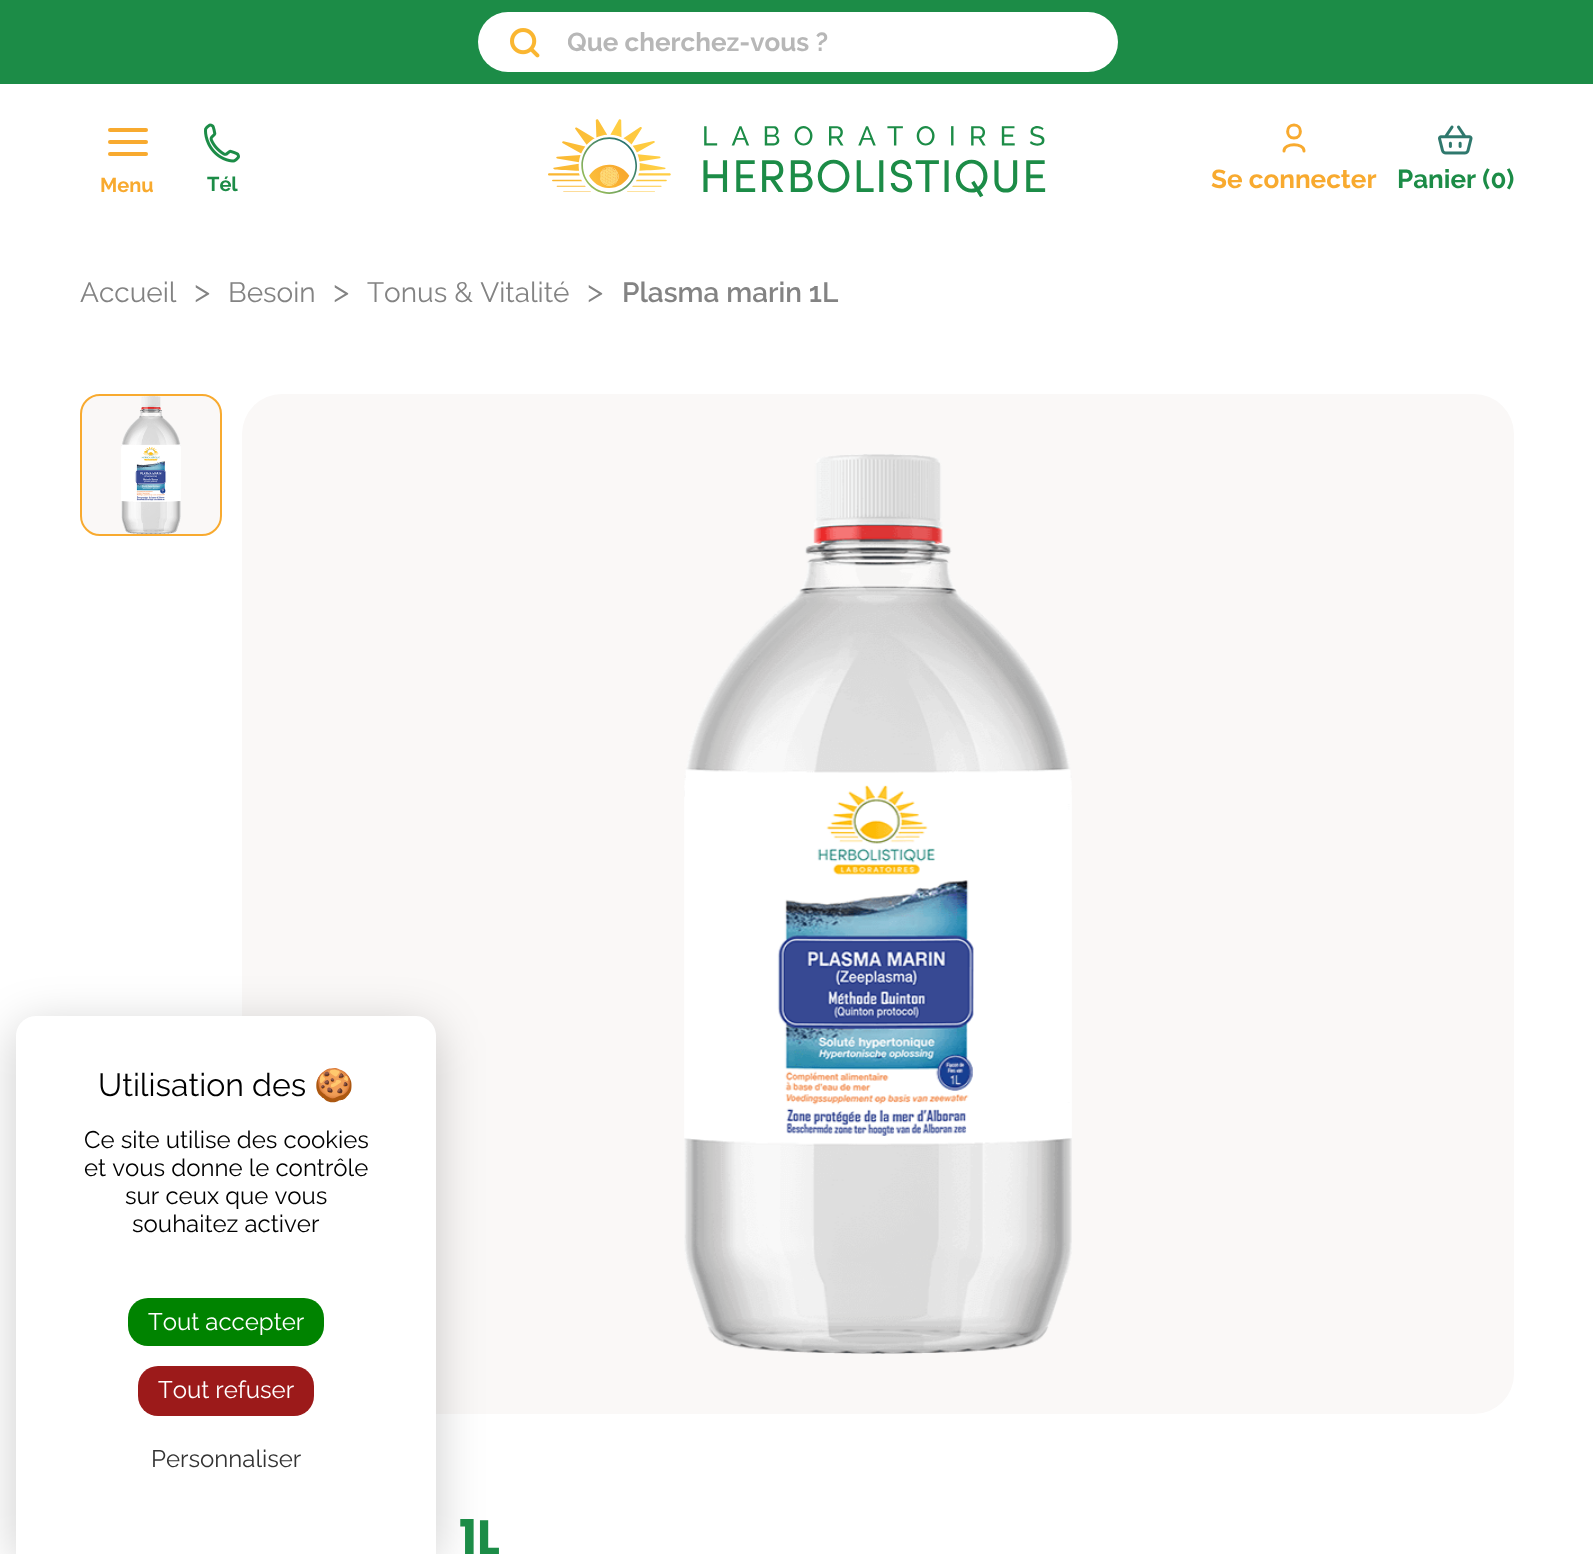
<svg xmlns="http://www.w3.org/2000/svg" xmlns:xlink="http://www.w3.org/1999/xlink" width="1593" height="1554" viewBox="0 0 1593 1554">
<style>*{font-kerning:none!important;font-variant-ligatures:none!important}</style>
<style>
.cls-1{font:bold 26px Raleway;fill:#b7b7b7}
.cls-2{font:bold 20px Raleway;fill:#f8aa2f}
.cls-3{font:bold 20px Raleway;fill:#1c8c47}
.cls-4{font:bold 26px Raleway;fill:#f8aa2f}
.cls-5{font:bold 26px Raleway;fill:#1c8c47}
.cls-6{font:100 28px Raleway;fill:#838383}
.cls-7{font:100 32px Raleway;fill:#838383}
.cls-8{font:600 28px Raleway;fill:#838383}
.cls-9{font:bold 48px Poppins;fill:#1c8c47}
.cls-10{font:100 32px Raleway;fill:#000000}
.cls-11{font:32px Noto Color Emoji;fill:#000000}
.cls-12{font:100 24px Raleway;fill:#000000}
.cls-13{font:100 24px Raleway;fill:#ffffff}
.cls-14{font:100 24px Raleway;fill:#333333}
</style>
<defs>
<clipPath id="clip1"><rect x="568" y="28" width="510" height="30"/></clipPath>
</defs>
<rect width="100%" height="100%" fill="#ffffff"/>
<rect fill="#1c8c47" x="0" y="0" width="1593" height="84"/>
<rect fill="#ffffff" x="478" y="12" width="640" height="60" rx="30"/>
<image xlink:href="image0.png" x="510" y="28" width="30" height="30"/>
<rect fill="#f8aa2f" x="108" y="128" width="40" height="4" rx="2"/>
<rect fill="#f8aa2f" x="108" y="140" width="40" height="4" rx="2"/>
<rect fill="#f8aa2f" x="108" y="152" width="40" height="4" rx="2"/>
<image xlink:href="image1.png" x="204" y="123" width="36" height="40"/>
<image xlink:href="image2.png" x="548" y="119" width="498" height="79"/>
<path fill="none" stroke="#f8aa2f" stroke-width="3" stroke-linecap="round" stroke-linejoin="round" d="M1304 151C1304 142.5 1284 142.5 1284 151M1294 138C1285.5 138 1285.5 125 1294 125C1302.5 125 1302.5 138 1294 138Z"/>
<image xlink:href="image3.png" x="1438" y="125" width="35" height="30"/>
<rect fill="#faf8f7" stroke="#f8aa2f" stroke-width="2" x="81" y="395" width="140" height="140" rx="19"/>
<image xlink:href="image4.png" x="121" y="396" width="60" height="138"/>
<rect fill="#faf8f7" x="242" y="394" width="1272" height="1020" rx="40"/>
<image xlink:href="image5.png" x="684" y="454" width="388" height="900"/>
<rect fill="#000000" fill-opacity="0.2" filter="blur(24px)" x="16" y="1026" width="420" height="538" rx="20"/>
<path fill="#ffffff" d="M36 1016H416C427 1016 436 1025 436 1036V1554H16V1036C16 1025 25 1016 36 1016Z"/>
<rect fill="#008300" x="128" y="1298" width="196" height="48" rx="20"/>
<rect fill="#9c1a1a" x="138" y="1366" width="176" height="50" rx="20"/>
<g clip-path="url(#clip1)">
<text class="cls-1" x="567" y="51">Que cherchez-vous ?</text>
</g>
<text class="cls-2" x="100" y="192">Menu</text>
<text class="cls-3" x="207" y="191">Tél</text>
<text class="cls-4" x="1211" y="188">Se connecter</text>
<text class="cls-5" x="1397" y="188">Panier (0)</text>
<text class="cls-6" x="80" y="302">Accueil</text>
<text class="cls-7" x="194" y="302">&gt;</text>
<text class="cls-6" x="228" y="302">Besoin</text>
<text class="cls-7" x="333" y="302">&gt;</text>
<text class="cls-6" x="367" y="302">Tonus &amp; Vitalité</text>
<text class="cls-7" x="587" y="302">&gt;</text>
<text class="cls-8" x="622" y="302">Plasma marin 1L</text>
<text class="cls-9" x="459" y="1554">1L</text>
<text class="cls-10" x="98" y="1096">Utilisation des</text>
<text class="cls-11" x="314" y="1096">🍪</text>
<text class="cls-12"><tspan x="84" y="1148">Ce site utilise des cookies</tspan><tspan x="84" y="1176">et vous donne le contrôle</tspan></text>
<text class="cls-12" x="125" y="1204">sur ceux que vous</text>
<text class="cls-12" x="132" y="1232">souhaitez activer</text>
<text class="cls-13" x="148" y="1330">Tout accepter</text>
<text class="cls-13" x="158" y="1398">Tout refuser</text>
<text class="cls-14" x="151" y="1467">Personnaliser</text>
</svg>
